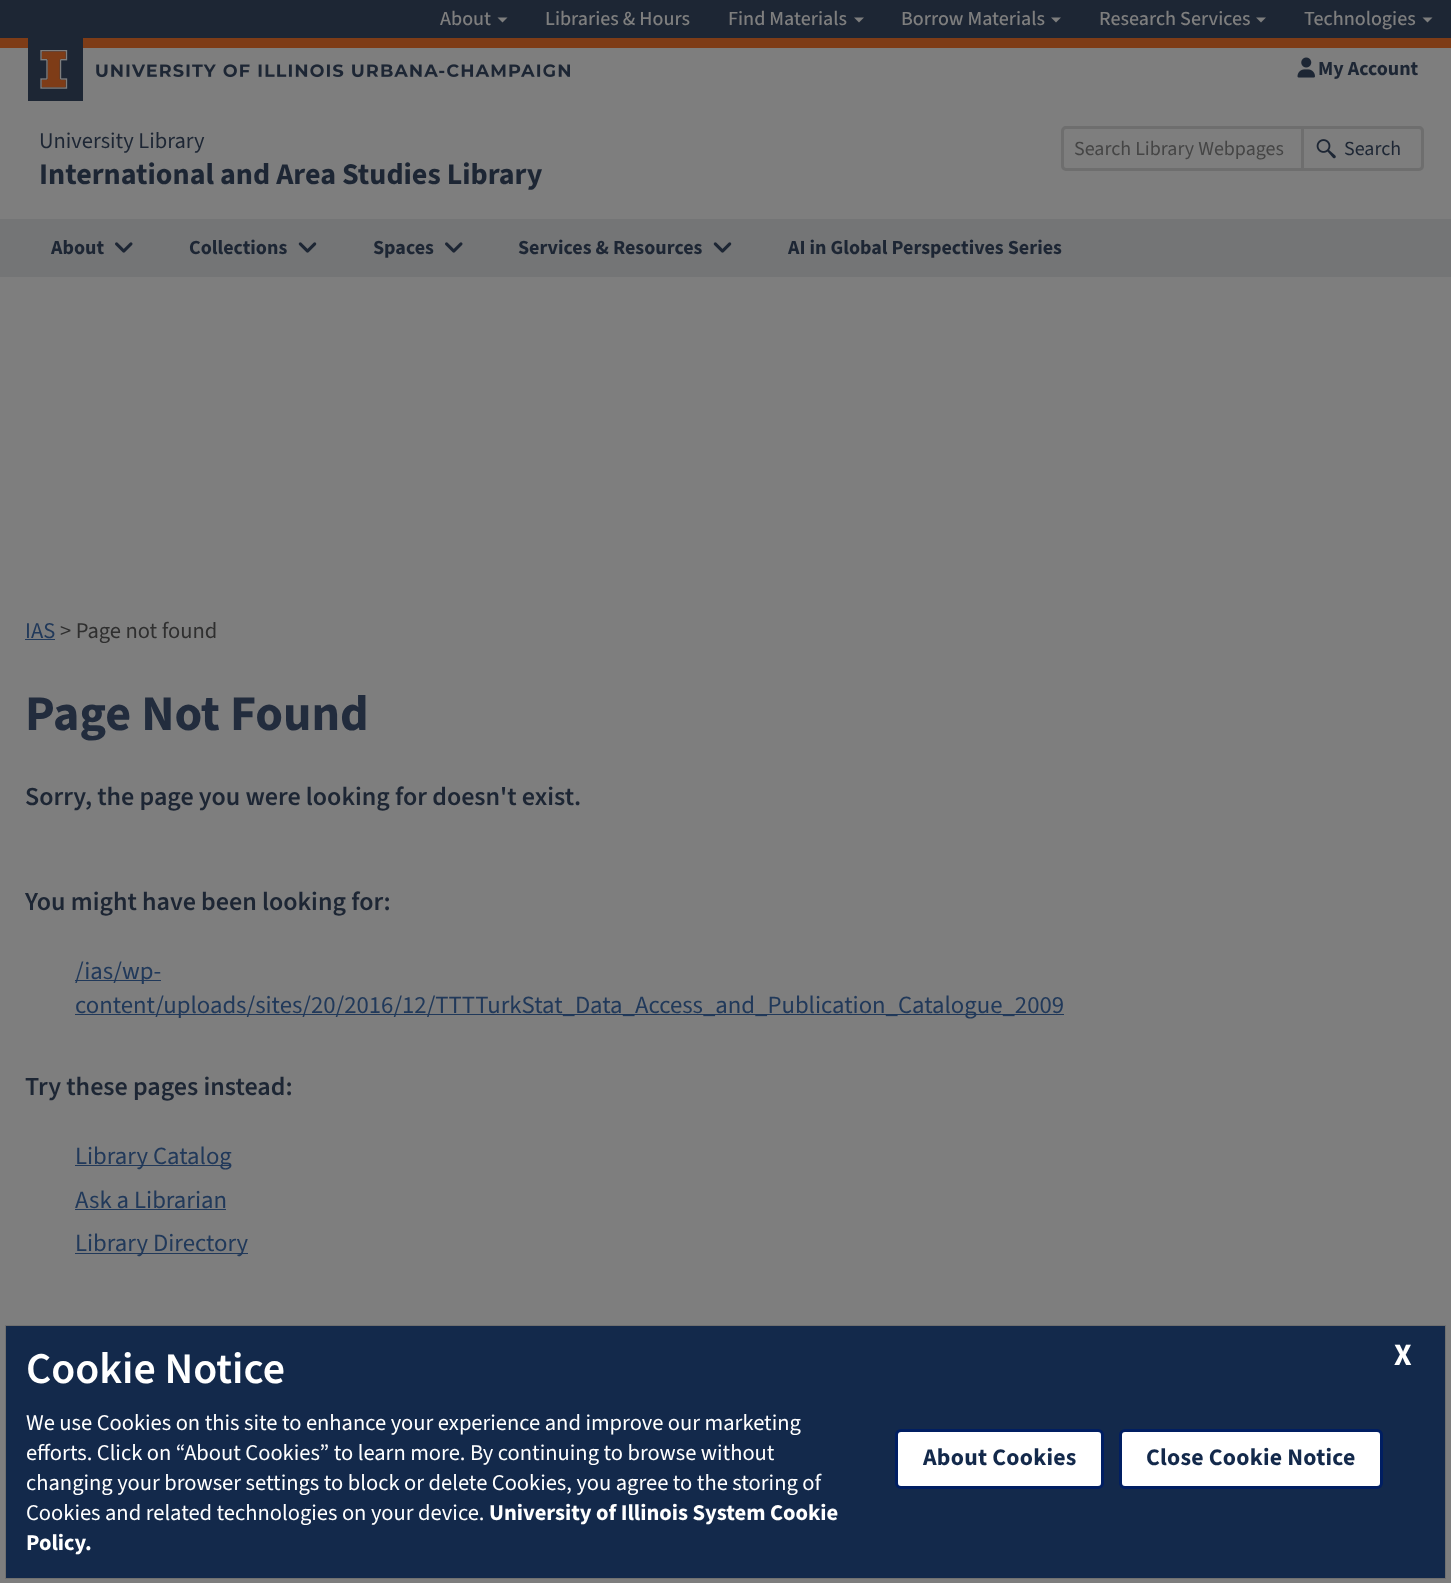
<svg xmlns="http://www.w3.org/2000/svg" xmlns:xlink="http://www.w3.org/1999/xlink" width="1451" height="1583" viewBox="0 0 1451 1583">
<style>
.cls-1{font:500 20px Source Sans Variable;fill:#7e7e7e}
.cls-2{font:bold 20px Source Sans Variable;fill:#1d2634}
.cls-3{font:22.5px Source Sans Variable;fill:#1d2634}
.cls-4{font:bold 30px Source Sans Variable;fill:#1d2634}
.cls-5{font:20px Source Sans Variable;fill:#454545}
.cls-6{font:20px Source Sans Variable;fill:#1d2634}
.cls-7{font:22.5px Source Sans Variable;fill:#21395a}
.cls-8{font:22.5px Source Sans Variable;fill:#2f2f2f}
.cls-9{font:bold 50px Source Sans Variable;fill:#222c3d}
.cls-10{font:600 26px Source Sans Variable;fill:#1d2634}
.cls-11{font:24.75px Source Sans Variable;fill:#21395a}
.cls-12{font:600 43.75px Source Sans Variable;fill:#ffffff}
.cls-13{font:bold 31px Source Sans Variable;fill:#ffffff}
.cls-14{font:22.5px Source Sans Variable;fill:#ffffff}
.cls-15{font:bold 22.5px Source Sans Variable;fill:#ffffff}
.cls-16{font:bold 23.75px Source Sans Variable;letter-spacing:0.25px;fill:#13294b}
</style>
<rect width="100%" height="100%" fill="#7e7e7e"/>
<rect fill="#1d2634" x="0" y="0" width="1451" height="38"/>
<path fill="#7e7e7e" d="M497.5 17.5H507.5L502.5 22.5Z"/>
<path fill="#7e7e7e" d="M854 17.5H864L859 22.5Z"/>
<path fill="#7e7e7e" d="M1051 17.5H1061L1056 22.5Z"/>
<path fill="#7e7e7e" d="M1256 17.5H1266L1261 22.5Z"/>
<path fill="#7e7e7e" d="M1422.5 17.5H1432.5L1427.5 22.5Z"/>
<rect fill="#7e3c17" x="0" y="38" width="1451" height="10"/>
<rect fill="#747576" x="0" y="219" width="1451" height="58"/>
<rect fill="#1d2634" x="28" y="38" width="55" height="63"/>
<image xlink:href="image0.png" x="40" y="50" width="28" height="39"/>
<image xlink:href="image1.png" x="96" y="64" width="474" height="14"/>
<image xlink:href="image2.png" x="1297" y="57" width="18" height="21"/>
<path fill="none" stroke="#6e6e6e" stroke-width="3" d="M1066 127.5H1302.5V169.5H1066C1064 169.5 1062.5 168 1062.5 166V131C1062.5 129 1064 127.5 1066 127.5Z"/>
<path fill="#7e7e7e" d="M1301 126H1419C1422 126 1424 128 1424 131V166C1424 169 1422 171 1419 171H1301Z"/>
<image xlink:href="image3.png" x="1316" y="139" width="20" height="20"/>
<path fill="none" stroke="#6e6e6e" stroke-width="3" d="M1302.5 127.5H1419C1421 127.5 1422.5 129 1422.5 131V166C1422.5 168 1421 169.5 1419 169.5H1302.5Z"/>
<image xlink:href="image4.png" x="115" y="242" width="18" height="11"/>
<image xlink:href="image5.png" x="298" y="242" width="19" height="11"/>
<image xlink:href="image4.png" x="445" y="242" width="18" height="11"/>
<image xlink:href="image5.png" x="713" y="242" width="19" height="11"/>
<rect fill="#21395a" x="25" y="639" width="30" height="1"/>
<rect fill="#21395a" x="75" y="980" width="86" height="1"/>
<rect fill="#21395a" x="75" y="1014" width="989" height="1"/>
<rect fill="#21395a" x="75" y="1165" width="156" height="1"/>
<rect fill="#21395a" x="75" y="1209" width="151" height="1"/>
<rect fill="#21395a" x="75" y="1253" width="173" height="1"/>
<rect fill="#13294b" stroke="#707070" x="5.5" y="1325.5" width="1440" height="253"/>
<rect fill="#ffffff" stroke="#001e62" stroke-width="3" x="896.5" y="1430.5" width="206" height="57" rx="4.5"/>
<rect fill="#ffffff" stroke="#001e62" stroke-width="3" x="1120.5" y="1430.5" width="261" height="57" rx="4.5"/>
<text class="cls-1" x="440" y="25">About</text>
<text class="cls-1" x="545" y="25">Libraries &amp; Hours</text>
<text class="cls-1" x="728" y="25">Find Materials</text>
<text class="cls-1" x="901" y="25">Borrow Materials</text>
<text class="cls-1" x="1099" y="25">Research Services</text>
<text class="cls-1" x="1304" y="25">Technologies</text>
<text class="cls-2" x="1318" y="75">My Account</text>
<text class="cls-3" x="39" y="148">University Library</text>
<text class="cls-4" x="39" y="184">International and Area Studies Library</text>
<text class="cls-5" x="1074" y="155">Search Library Webpages</text>
<text class="cls-6" x="1344" y="155">Search</text>
<text class="cls-2" x="51" y="254">About</text>
<text class="cls-2" x="189" y="254">Collections</text>
<text class="cls-2" x="373" y="254">Spaces</text>
<text class="cls-2" x="518" y="254">Services &amp; Resources</text>
<text class="cls-2" x="788" y="254">AI in Global Perspectives Series</text>
<text class="cls-7" x="25" y="638">IAS</text>
<text class="cls-8" x="60" y="638">&gt; Page not found</text>
<text class="cls-9" x="25" y="730">Page Not Found</text>
<text class="cls-10" x="25" y="805">Sorry, the page you were looking for doesn't exist.</text>
<text class="cls-10" x="25" y="910">You might have been looking for:</text>
<text class="cls-11"><tspan x="75" y="979">/ias/wp-</tspan><tspan x="75" y="1013">content/uploads/sites/20/2016/12/TTTTurkStat_Data_Access_and_Publication_Catalogue_2009</tspan></text>
<text class="cls-10" x="25" y="1095">Try these pages instead:</text>
<text class="cls-11"><tspan x="75" y="1164">Library Catalog</tspan><tspan x="75" y="1208">Ask a Librarian</tspan><tspan x="75" y="1251">Library Directory</tspan></text>
<text class="cls-12" x="26" y="1383">Cookie Notice</text>
<text class="cls-13" x="1394" y="1365">X</text>
<text class="cls-14"><tspan x="26" y="1430">We use Cookies on this site to enhance your experience and improve our marketing</tspan><tspan x="26" y="1460">efforts. Click on “About Cookies” to learn more. By continuing to browse without</tspan><tspan x="26" y="1490">changing your browser settings to block or delete Cookies, you agree to the storing of</tspan><tspan x="26" y="1520">Cookies and related technologies on your device.</tspan></text>
<text class="cls-15" x="489" y="1520">University of Illinois System Cookie</text>
<text class="cls-15" x="26" y="1550">Policy.</text>
<text class="cls-16" x="923" y="1465">About Cookies</text>
<text class="cls-16" x="1146" y="1465">Close Cookie Notice</text>
</svg>
